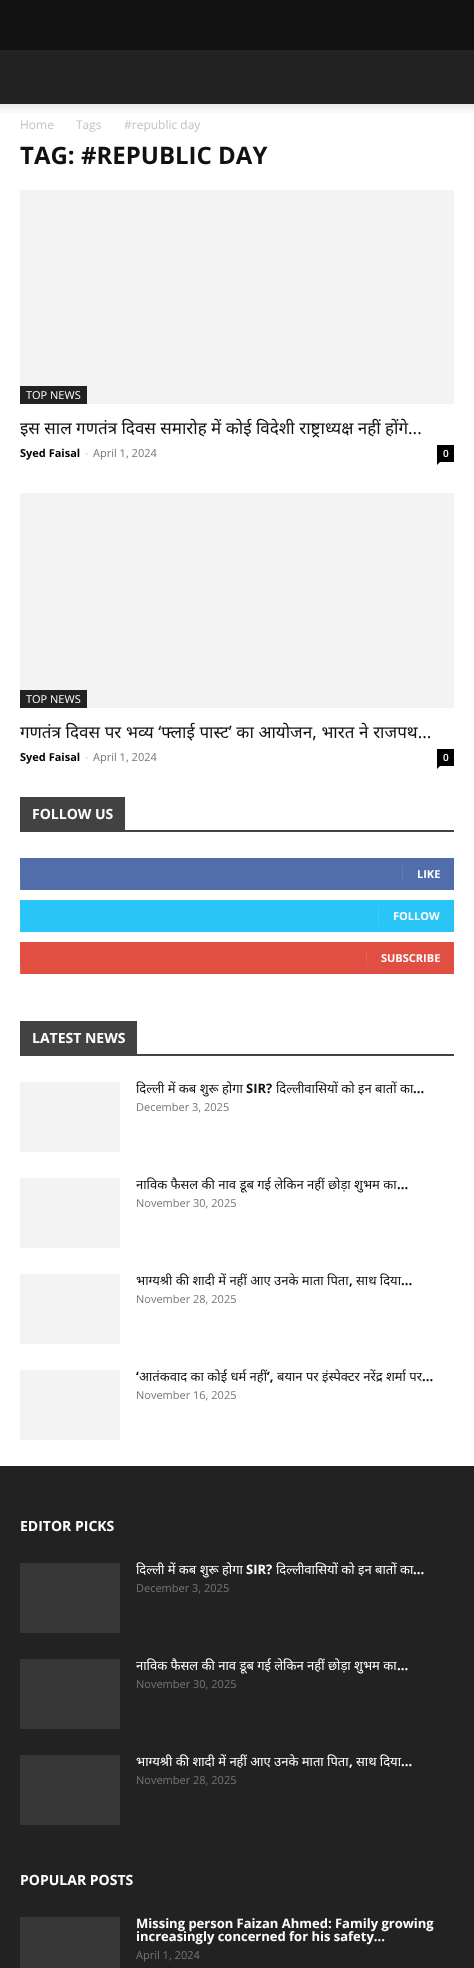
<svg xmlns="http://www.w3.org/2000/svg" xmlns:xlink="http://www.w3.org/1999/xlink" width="474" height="1968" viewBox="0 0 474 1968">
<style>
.cls-1{font:12px Open Sans;fill:#c3c3c3}
.cls-2{font:bold 24px Open Sans;fill:#111111}
.cls-3{font:11px Open Sans;fill:#ffffff}
.cls-4{font:17px Noto Sans;fill:#111111}
.cls-5{font:bold 11px Open Sans;fill:#000000}
.cls-6{font:11px Open Sans;fill:#cccccc}
.cls-7{font:11px Open Sans;fill:#767676}
.cls-8{font:600 10px Open Sans;fill:#ffffff}
.cls-9{font:bold 14px Open Sans;fill:#ffffff}
.cls-10{font:bold 11px Open Sans;fill:#ffffff}
.cls-11{font:13px Noto Sans;fill:#111111}
.cls-12{font:bold 13px Open Sans;fill:#111111}
.cls-13{font:13px Noto Sans;fill:#ffffff}
.cls-14{font:bold 13px Open Sans;fill:#ffffff}
</style>
<rect width="100%" height="100%" fill="#ffffff"/>
<rect fill="#111111" x="0" y="0" width="474" height="50"/>
<rect fill="#222222" x="0" y="50" width="474" height="54"/>
<image xlink:href="image0.png" x="0" y="104" width="474" height="9"/>
<rect fill="#f3f3f3" x="20" y="190" width="434" height="214"/>
<rect fill="#222222" x="20" y="386" width="67" height="18"/>
<rect fill="#000000" x="437" y="445" width="17" height="17"/>
<path fill="#000000" d="M437 462H440L437 465Z"/>
<rect fill="#f3f3f3" x="20" y="493" width="434" height="215"/>
<rect fill="#222222" x="20" y="690" width="67" height="18"/>
<rect fill="#000000" x="437" y="749" width="17" height="17"/>
<path fill="#000000" d="M437 766H440L437 769Z"/>
<rect fill="#424242" x="20" y="830" width="434" height="2"/>
<rect fill="#424242" x="20" y="797" width="105" height="33"/>
<rect fill="#516eab" x="20" y="858" width="434" height="32"/>
<rect fill="#627db3" x="402" y="866" width="1" height="16"/>
<rect fill="#627db3" x="20" y="881" width="1" height="9"/>
<rect fill="#29c5f6" x="20" y="900" width="434" height="32"/>
<rect fill="#3ecbf7" x="378" y="908" width="1" height="16"/>
<rect fill="#3ecbf7" x="20" y="923" width="1" height="9"/>
<rect fill="#e14e42" x="20" y="942" width="434" height="32"/>
<rect fill="#e46055" x="366" y="950" width="1" height="16"/>
<rect fill="#e46055" x="20" y="965" width="1" height="9"/>
<rect fill="#424242" x="20" y="1054" width="434" height="2"/>
<rect fill="#424242" x="20" y="1021" width="117" height="33"/>
<rect fill="#f3f3f3" x="20" y="1082" width="100" height="70"/>
<rect fill="#f3f3f3" x="20" y="1178" width="100" height="70"/>
<rect fill="#f3f3f3" x="20" y="1274" width="100" height="70"/>
<rect fill="#f3f3f3" x="20" y="1370" width="100" height="70"/>
<rect fill="#222222" x="0" y="1466" width="474" height="502"/>
<rect fill="#373737" x="20" y="1563" width="100" height="70"/>
<rect fill="#373737" x="20" y="1659" width="100" height="70"/>
<rect fill="#373737" x="20" y="1755" width="100" height="70"/>
<rect fill="#373737" x="20" y="1917" width="100" height="51"/>
<text class="cls-1" x="20" y="129">Home</text>
<text class="cls-1" x="76" y="129">Tags</text>
<text class="cls-1" x="124" y="129">#republic day</text>
<text class="cls-2" x="20" y="164">TAG: #REPUBLIC DAY</text>
<text class="cls-3" x="26" y="399">TOP NEWS</text>
<text class="cls-4" x="20" y="434">इस साल गणतंत्र दिवस समारोह में कोई विदेशी राष्ट्राध्यक्ष नहीं होंगे...</text>
<text class="cls-5" x="20" y="457">Syed Faisal</text>
<text class="cls-6" x="85" y="457">-</text>
<text class="cls-7" x="93" y="457">April 1, 2024</text>
<text class="cls-8" x="443" y="457">0</text>
<text class="cls-3" x="26" y="703">TOP NEWS</text>
<text class="cls-4" x="20" y="738" word-spacing="0.25">गणतंत्र दिवस पर भव्य ‘फ्लाई पास्ट’ का आयोजन, भारत ने राजपथ...</text>
<text class="cls-5" x="20" y="761">Syed Faisal</text>
<text class="cls-6" x="85" y="761">-</text>
<text class="cls-7" x="93" y="761">April 1, 2024</text>
<text class="cls-8" x="443" y="761">0</text>
<text class="cls-9" x="32" y="819">FOLLOW US</text>
<text class="cls-10" x="417" y="878">LIKE</text>
<text class="cls-10" x="393" y="920">FOLLOW</text>
<text class="cls-10" x="381" y="962">SUBSCRIBE</text>
<text class="cls-9" x="32" y="1043">LATEST NEWS</text>
<text class="cls-11" x="136" y="1093">दिल्ली में कब शुरू होगा</text>
<text class="cls-12" x="246" y="1093">SIR?</text>
<text class="cls-11" x="276" y="1093">दिल्लीवासियों को इन बातों का</text>
<text class="cls-12" x="413" y="1093">...</text>
<text class="cls-7" x="136" y="1111">December 3, 2025</text>
<text class="cls-11" x="136" y="1189">नाविक फैसल की नाव डूब गई लेकिन नहीं छोड़ा शुभम का</text>
<text class="cls-12" x="397" y="1189">...</text>
<text class="cls-7" x="136" y="1207">November 30, 2025</text>
<text class="cls-11" x="136" y="1285">भाग्यश्री की शादी में नहीं आए उनके माता पिता</text>
<text class="cls-12" x="349" y="1285">,</text>
<text class="cls-11" x="356" y="1285">साथ दिया</text>
<text class="cls-12" x="401" y="1285">...</text>
<text class="cls-7" x="136" y="1303">November 28, 2025</text>
<text class="cls-12" x="136" y="1381">‘</text>
<text class="cls-11" x="139" y="1381">आतंकवाद का कोई धर्म नहीं</text>
<text class="cls-12" x="267" y="1381">’,</text>
<text class="cls-11" x="277" y="1381">बयान पर इंस्पेक्टर नरेंद्र शर्मा पर</text>
<text class="cls-12" x="422" y="1381">...</text>
<text class="cls-7" x="136" y="1399">November 16, 2025</text>
<text class="cls-9" x="20" y="1531">EDITOR PICKS</text>
<text class="cls-13" x="136" y="1574">दिल्ली में कब शुरू होगा</text>
<text class="cls-14" x="246" y="1574">SIR?</text>
<text class="cls-13" x="276" y="1574">दिल्लीवासियों को इन बातों का</text>
<text class="cls-14" x="413" y="1574">...</text>
<text class="cls-7" x="136" y="1592">December 3, 2025</text>
<text class="cls-13" x="136" y="1670">नाविक फैसल की नाव डूब गई लेकिन नहीं छोड़ा शुभम का</text>
<text class="cls-14" x="397" y="1670">...</text>
<text class="cls-7" x="136" y="1688">November 30, 2025</text>
<text class="cls-13" x="136" y="1766">भाग्यश्री की शादी में नहीं आए उनके माता पिता</text>
<text class="cls-14" x="349" y="1766">,</text>
<text class="cls-13" x="356" y="1766">साथ दिया</text>
<text class="cls-14" x="401" y="1766">...</text>
<text class="cls-7" x="136" y="1784">November 28, 2025</text>
<text class="cls-9" x="20" y="1885">POPULAR POSTS</text>
<text class="cls-14"><tspan x="136" y="1928">Missing person Faizan Ahmed: Family growing</tspan><tspan x="136" y="1941">increasingly concerned for his safety...</tspan></text>
<text class="cls-7" x="136" y="1959">April 1, 2024</text>
</svg>
